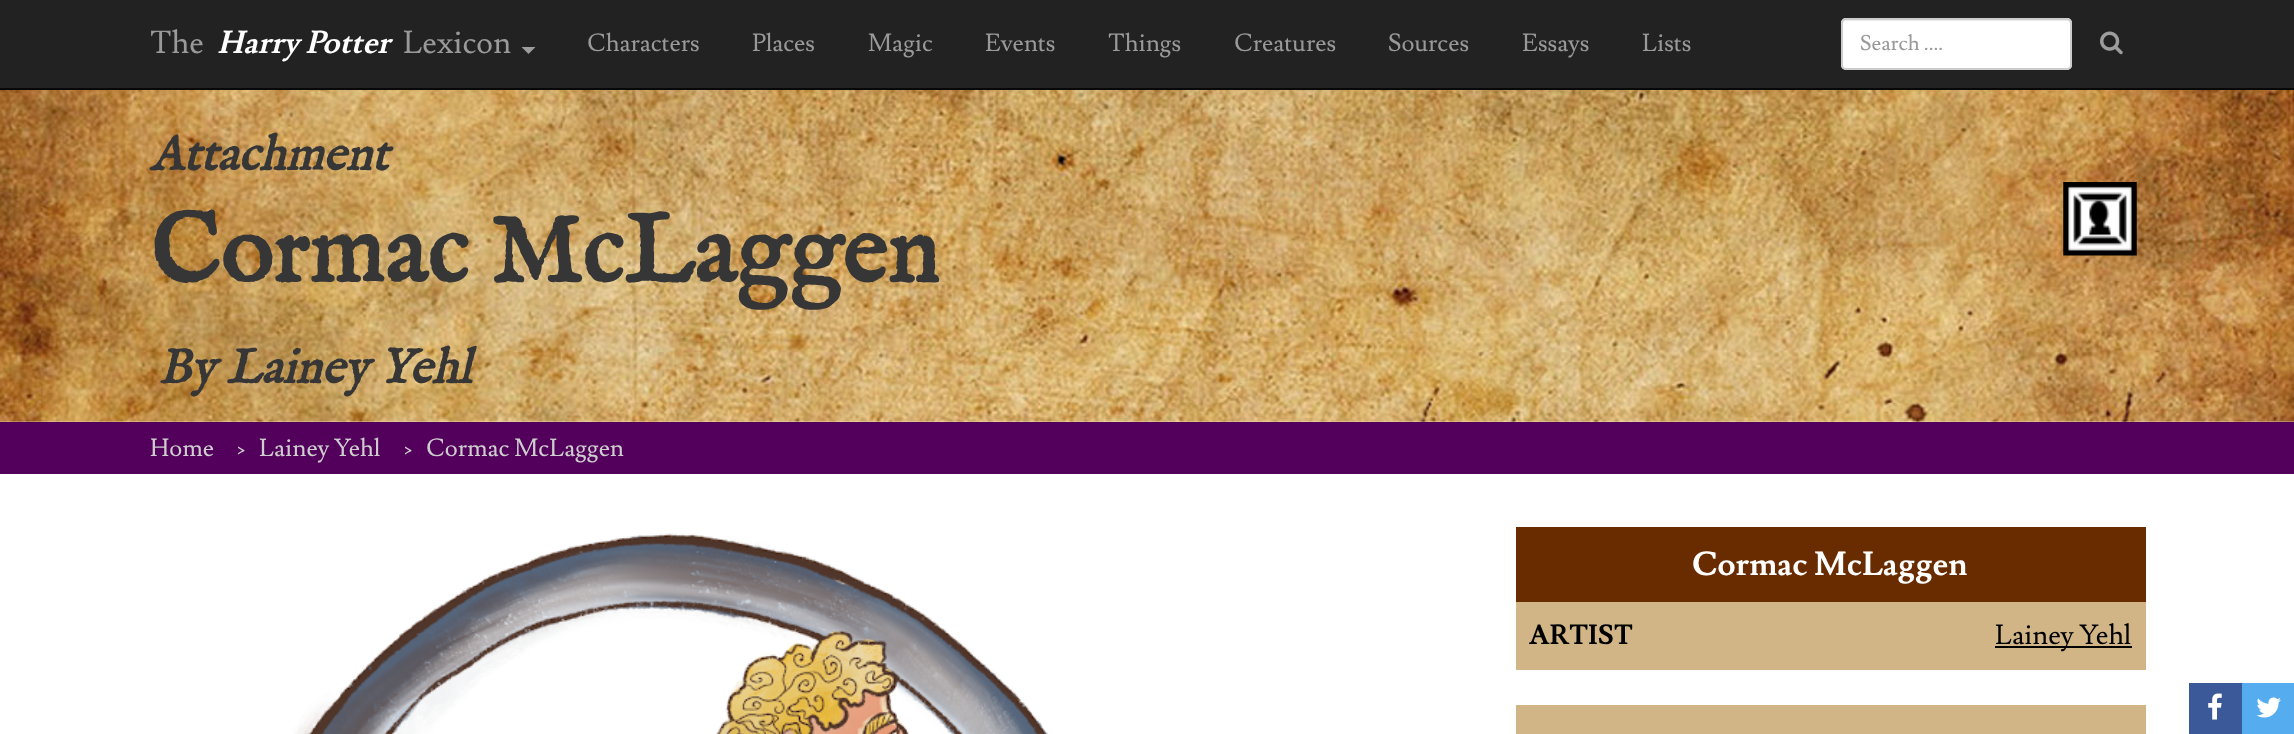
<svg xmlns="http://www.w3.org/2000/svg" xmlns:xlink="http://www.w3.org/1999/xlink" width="2294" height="734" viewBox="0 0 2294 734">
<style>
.cls-1{font:31.5px Lusitana;fill:#999999}
.cls-2{font:italic bold 31.5px Lusitana;fill:#ffffff}
.cls-3{font:24.5px Lusitana;fill:#999999}
.cls-4{font:21px Lusitana;fill:#999999}
.cls-5{font:italic bold 49px IM FELL English;fill:#363636}
.cls-6{font:bold 98px IM FELL English;fill:#363636}
.cls-7{font:24.5px Lusitana;fill:#cecece}
.cls-8{font:bold 33px Lusitana;fill:#ffffff}
.cls-9{font:bold 27.5px Lusitana;fill:#000000}
.cls-10{font:27.5px Lusitana;fill:#000000}
</style>
<rect width="100%" height="100%" fill="#ffffff"/>
<rect fill="#222222" x="0" y="0" width="2294" height="88"/>
<rect fill="#080808" x="0" y="88" width="2294" height="2"/>
<path fill="#9d9d9d" d="M521.5 47H535.5L528.5 54Z"/>
<rect fill="#ffffff" x="1841" y="18" width="231" height="52" rx="5"/>
<path fill="#ececec" d="M1846 21H2067C2069 21 2070 23 2070 24C2070 21 2069 19 2066 19H1847C1844 19 1843 21 1843 24C1843 23 1844 21 1846 21Z"/>
<rect fill="none" stroke="#cccccc" stroke-width="2" x="1842" y="19" width="229" height="50" rx="4"/>
<image xlink:href="image0.png" x="2100" y="31" width="23" height="24"/>
<image xlink:href="image1.png" x="0" y="90" width="2294" height="332"/>
<image xlink:href="image2.png" x="2063" y="182" width="74" height="74"/>
<rect fill="#52005c" x="0" y="422" width="2294" height="52"/>
<image xlink:href="image3.png" x="293" y="533" width="755" height="201"/>
<rect fill="#692c00" x="1516" y="527" width="630" height="75"/>
<rect fill="#d1b586" x="1516" y="602" width="630" height="68"/>
<rect fill="#000000" x="1995" y="646" width="137" height="2"/>
<rect fill="#d1b586" x="1516" y="705" width="630" height="29"/>
<rect fill="#3b5998" x="2189" y="683" width="53" height="51"/>
<image xlink:href="image4.png" x="2208" y="693" width="14" height="27"/>
<rect fill="#55acee" x="2242" y="683" width="52" height="51"/>
<image xlink:href="image5.png" x="2256" y="697" width="25" height="21"/>
<text class="cls-1" x="150" y="53">The</text>
<text class="cls-2" x="217" y="53">Harry Potter</text>
<text class="cls-1" x="403" y="53">Lexicon</text>
<text class="cls-3" x="587" y="51">Characters</text>
<text class="cls-3" x="752" y="51">Places</text>
<text class="cls-3" x="868" y="51">Magic</text>
<text class="cls-3" x="985" y="51">Events</text>
<text class="cls-3" x="1108" y="51">Things</text>
<text class="cls-3" x="1234" y="51">Creatures</text>
<text class="cls-3" x="1388" y="51">Sources</text>
<text class="cls-3" x="1522" y="51">Essays</text>
<text class="cls-3" x="1642" y="51">Lists</text>
<text class="cls-4" x="1860" y="50">Search ....</text>
<text class="cls-5" x="150" y="170">Attachment</text>
<text class="cls-6" x="150" y="282">Cormac McLaggen</text>
<text class="cls-5" x="158" y="383">By</text>
<text class="cls-5" x="226" y="383">Lainey Yehl</text>
<text class="cls-7" x="150" y="456">Home</text>
<text class="cls-7" x="236" y="456">›</text>
<text class="cls-7" x="259" y="456">Lainey Yehl</text>
<text class="cls-7" x="403" y="456">›</text>
<text class="cls-7" x="426" y="456">Cormac McLaggen</text>
<text class="cls-8" x="1692" y="575">Cormac McLaggen</text>
<text class="cls-9" x="1529" y="644">ARTIST</text>
<text class="cls-10" x="1995" y="644">Lainey Yehl</text>
</svg>
